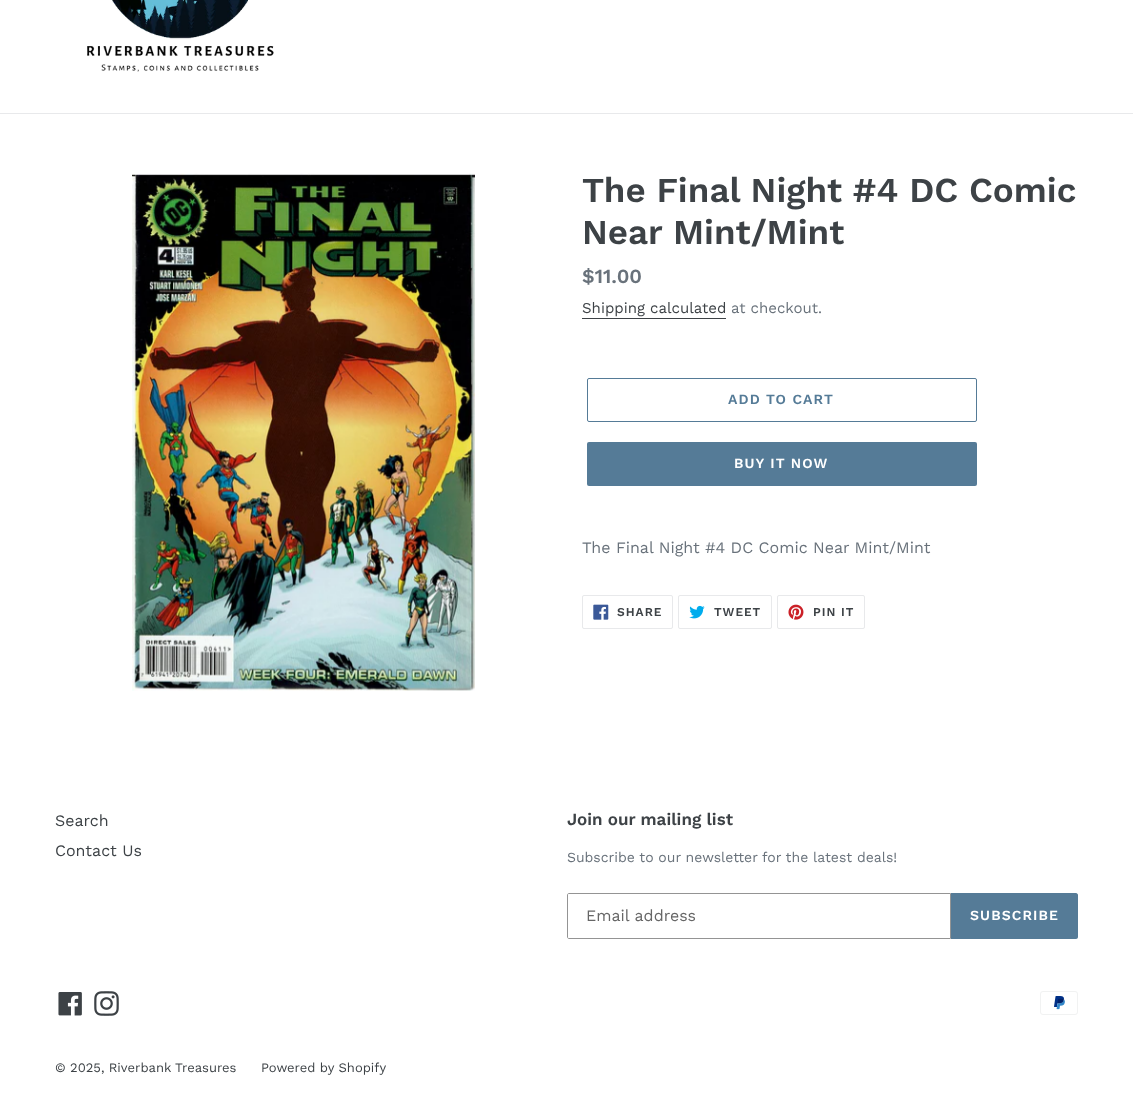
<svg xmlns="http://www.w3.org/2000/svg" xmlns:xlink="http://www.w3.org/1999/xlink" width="1133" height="1093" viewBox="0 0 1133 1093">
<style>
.cls-1{font:600 35px Work Sans;fill:#3d4246}
.cls-2{font:600 20px Work Sans;fill:#69727b}
.cls-3{font:15px Work Sans;fill:#3d4246}
.cls-4{font:15px Work Sans;fill:#69727b}
.cls-5{font:600 14px Work Sans;letter-spacing:1.1px;fill:#557b97}
.cls-6{font:600 14px Work Sans;letter-spacing:1.1px;fill:#ffffff}
.cls-7{font:16px Work Sans;fill:#69727b}
.cls-8{font:600 12px Work Sans;letter-spacing:1px;fill:#3d4246}
.cls-9{font:16px Work Sans;fill:#3d4246}
.cls-10{font:600 17px Work Sans;fill:#3d4246}
.cls-11{font:14px Work Sans;fill:#69727b}
.cls-12{font:16px Work Sans;fill:#666666}
.cls-13{font:13px Work Sans;fill:#3d4246}
</style>
<rect width="100%" height="100%" fill="#ffffff"/>
<rect fill="#e8e9eb" x="0" y="113" width="1133" height="1"/>
<image xlink:href="image0.png" x="87" y="0" width="187" height="72"/>
<image xlink:href="image1.png" x="132" y="173" width="343" height="518"/>
<rect fill="#3d4246" x="582" y="318" width="144" height="1"/>
<rect fill="none" stroke="#557b97" x="587.5" y="378.5" width="389" height="43" rx="1.5"/>
<rect fill="#557b97" x="587" y="442" width="390" height="44" rx="2"/>
<rect fill="none" stroke="#e8e9eb" x="582.5" y="595.5" width="90" height="33" rx="1.5"/>
<image xlink:href="image2.png" x="593" y="604" width="16" height="16"/>
<rect fill="none" stroke="#e8e9eb" x="678.5" y="595.5" width="93" height="33" rx="1.5"/>
<image xlink:href="image3.png" x="689" y="605" width="16" height="14"/>
<rect fill="none" stroke="#e8e9eb" x="777.5" y="595.5" width="87" height="33" rx="1.5"/>
<image xlink:href="image4.png" x="788" y="604" width="16" height="16"/>
<path fill="none" stroke="#949494" d="M569 893.5H950.5V938.5H569C568 938.5 567.5 938 567.5 937V895C567.5 894 568 893.5 569 893.5Z"/>
<path fill="#557b97" d="M951 893H1076C1077 893 1078 894 1078 895V937C1078 938 1077 939 1076 939H951Z"/>
<image xlink:href="image5.png" x="58" y="992" width="24" height="24"/>
<image xlink:href="image6.png" x="94" y="991" width="25" height="25"/>
<image xlink:href="image7.png" x="1040" y="991" width="38" height="24"/>
<text class="cls-1"><tspan x="582" y="202">The Final Night #4 DC Comic</tspan><tspan x="582" y="244">Near Mint/Mint</tspan></text>
<text class="cls-2" x="582" y="283">$11.00</text>
<text class="cls-3" x="582" y="313">Shipping calculated</text>
<text class="cls-4" x="731" y="313">at checkout.</text>
<text class="cls-5" x="728" y="404">ADD TO CART</text>
<text class="cls-6" x="734" y="468">BUY IT NOW</text>
<text class="cls-7" x="582" y="553">The Final Night #4 DC Comic Near Mint/Mint</text>
<text class="cls-8" x="617" y="616">SHARE</text>
<text class="cls-8" x="714" y="616">TWEET</text>
<text class="cls-8" x="813" y="616">PIN IT</text>
<text class="cls-9"><tspan x="55" y="826">Search</tspan><tspan x="55" y="856">Contact Us</tspan></text>
<text class="cls-10" x="567" y="825">Join our mailing list</text>
<text class="cls-11" x="567" y="862">Subscribe to our newsletter for the latest deals!</text>
<text class="cls-12" x="586" y="921">Email address</text>
<text class="cls-6" x="970" y="920">SUBSCRIBE</text>
<text class="cls-13" x="55" y="1072">© 2025, Riverbank Treasures</text>
<text class="cls-13" x="261" y="1072">Powered by Shopify</text>
</svg>
